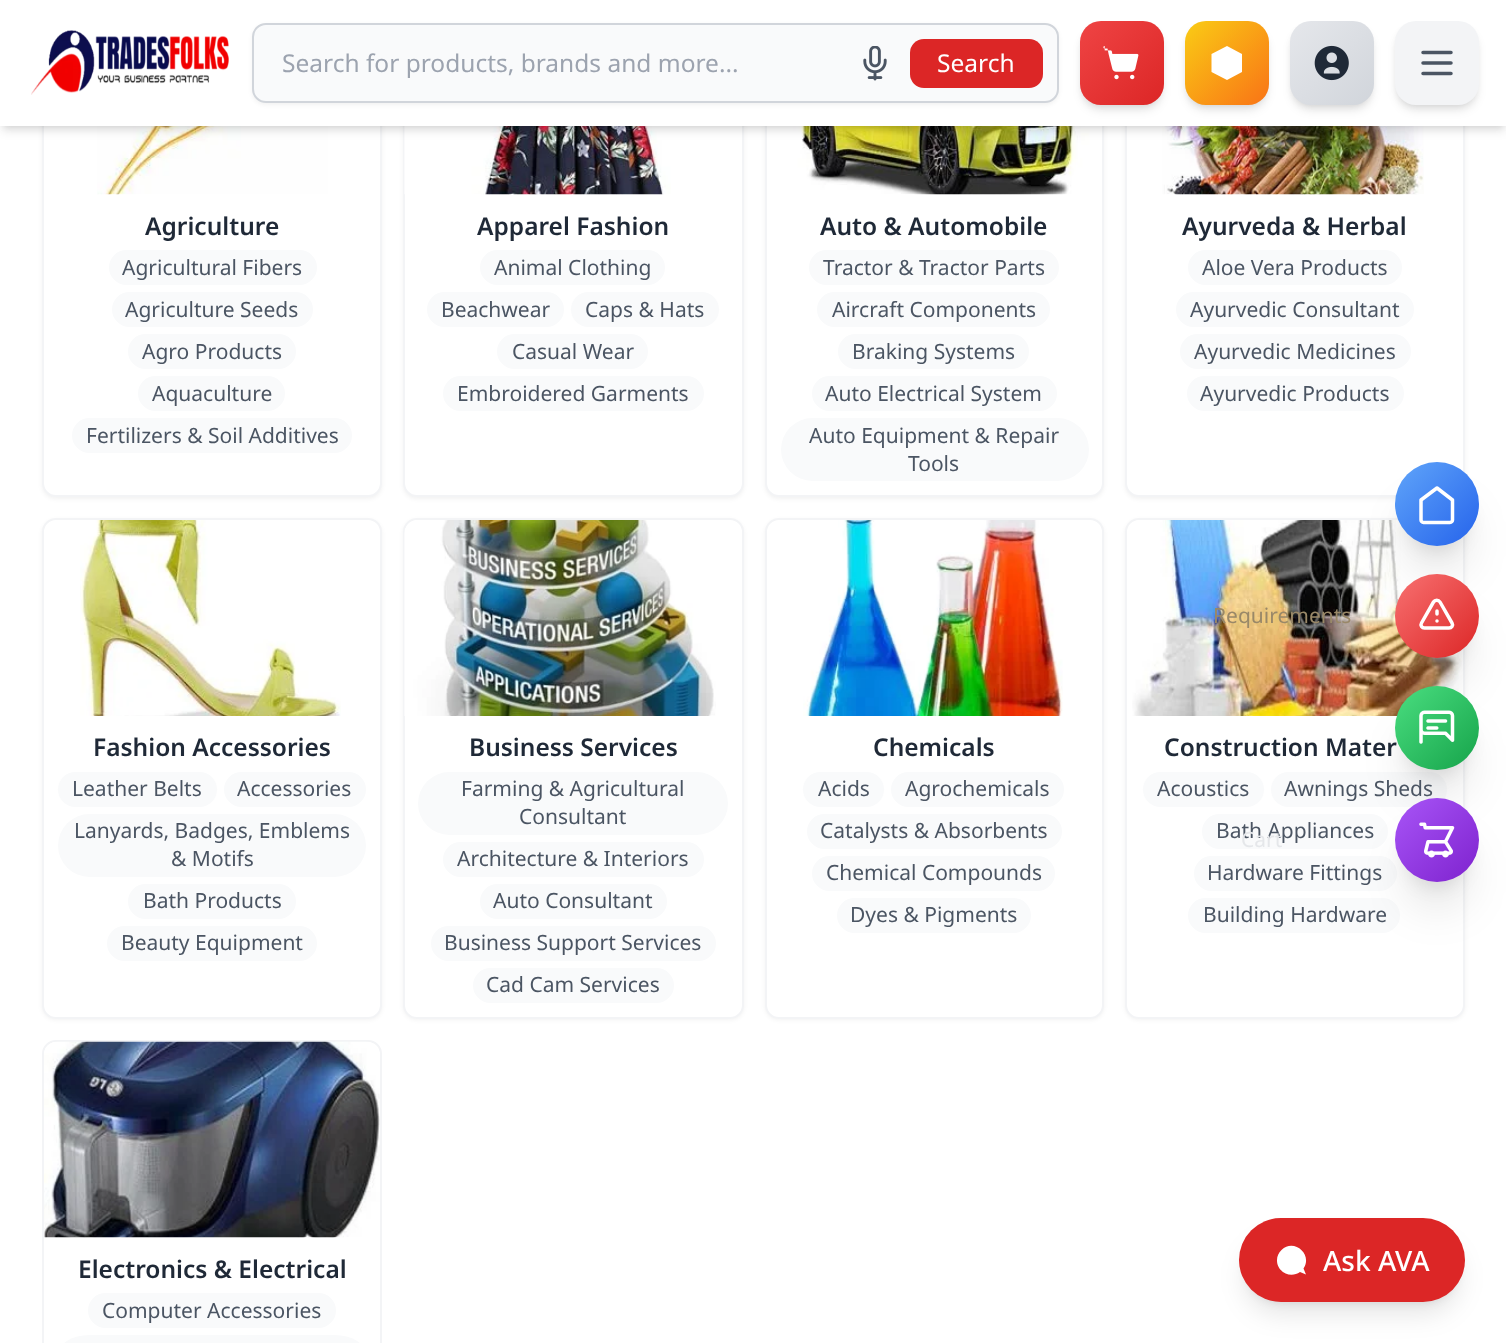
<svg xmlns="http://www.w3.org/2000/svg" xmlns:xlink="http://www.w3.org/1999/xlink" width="1506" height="1343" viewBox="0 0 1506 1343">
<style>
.cls-1{font:24.5px Noto Sans;fill:#9ca3af}
.cls-2{font:24.5px Noto Sans;fill:#ffffff}
.cls-3{font:600 24.5px Noto Sans;fill:#1f2937}
.cls-4{font:21px Noto Sans;fill:#4b5563}
.cls-5{font:21px Noto Sans;fill:#998868}
.cls-6{font:21px Noto Sans;fill:#e5e7ea}
.cls-7{font:500 28px Noto Sans;fill:#ffffff}
</style>
<defs>
<linearGradient id="g1" gradientUnits="userSpaceOnUse" x1="1080" y1="21" x2="1164" y2="105"><stop offset="0" stop-color="#ef4444"/><stop offset="1" stop-color="#dc2626"/></linearGradient>
<linearGradient id="g2" gradientUnits="userSpaceOnUse" x1="1185" y1="21" x2="1269" y2="105"><stop offset="0" stop-color="#facc15"/><stop offset="1" stop-color="#f97316"/></linearGradient>
<linearGradient id="g3" gradientUnits="userSpaceOnUse" x1="1290" y1="21" x2="1374" y2="105"><stop offset="0" stop-color="#e5e7eb"/><stop offset="1" stop-color="#d1d5db"/></linearGradient>
<linearGradient id="g4" gradientUnits="userSpaceOnUse" x1="1395" y1="574" x2="1479" y2="658"><stop offset="0" stop-color="#f87171"/><stop offset="1" stop-color="#dc2626"/></linearGradient>
<linearGradient id="g5" gradientUnits="userSpaceOnUse" x1="1395" y1="462" x2="1479" y2="546"><stop offset="0" stop-color="#60a5fa"/><stop offset="1" stop-color="#2563eb"/></linearGradient>
<linearGradient id="g6" gradientUnits="userSpaceOnUse" x1="1395" y1="798" x2="1479" y2="882"><stop offset="0" stop-color="#a855f7"/><stop offset="1" stop-color="#7e22ce"/></linearGradient>
<linearGradient id="g7" gradientUnits="userSpaceOnUse" x1="1395" y1="686" x2="1479" y2="770"><stop offset="0" stop-color="#4ade80"/><stop offset="1" stop-color="#16a34a"/></linearGradient>
</defs>
<rect width="100%" height="100%" fill="#ffffff"/>
<rect fill="#000000" fill-opacity="0.05" filter="blur(2px)" x="42" y="-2" width="340" height="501" rx="14"/>
<rect fill="#ffffff" stroke="#f3f4f6" stroke-width="2" x="43" y="-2" width="338" height="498" rx="13"/>
<image xlink:href="image4.png" x="97" y="126" width="231" height="69"/>
<rect fill="#000000" fill-opacity="0.05" filter="blur(2px)" x="403" y="-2" width="341" height="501" rx="14"/>
<rect fill="#ffffff" stroke="#f3f4f6" stroke-width="2" x="404" y="-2" width="339" height="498" rx="13"/>
<image xlink:href="image5.png" x="404" y="126" width="267" height="69"/>
<rect fill="#000000" fill-opacity="0.05" filter="blur(2px)" x="765" y="-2" width="339" height="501" rx="14"/>
<rect fill="#ffffff" stroke="#f3f4f6" stroke-width="2" x="766" y="-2" width="337" height="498" rx="13"/>
<image xlink:href="image6.png" x="767" y="126" width="335" height="69"/>
<rect fill="#000000" fill-opacity="0.05" filter="blur(2px)" x="1125" y="-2" width="340" height="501" rx="14"/>
<rect fill="#ffffff" stroke="#f3f4f6" stroke-width="2" x="1126" y="-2" width="338" height="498" rx="13"/>
<image xlink:href="image7.png" x="1162" y="126" width="262" height="69"/>
<rect fill="#000000" fill-opacity="0.1" filter="blur(3.5px)" x="4" y="7" width="1499" height="119"/>
<rect fill="#000000" fill-opacity="0.1" filter="blur(5px)" x="2" y="9" width="1503" height="122"/>
<rect fill="#ffffff" x="0" y="0" width="1506" height="126"/>
<image xlink:href="image0.png" x="31" y="30" width="198" height="65"/>
<rect fill="#000000" fill-opacity="0.05" filter="blur(2px)" x="252" y="25" width="807" height="80" rx="14"/>
<rect fill="#f9fafb" stroke="#d1d5db" stroke-width="2" x="253" y="24" width="805" height="78" rx="13"/>
<image xlink:href="image1.png" x="863" y="46" width="24" height="35"/>
<rect fill="#dc2626" x="910" y="39" width="133" height="49" rx="14"/>
<rect fill="#000000" fill-opacity="0.1" filter="blur(3.5px)" x="1083" y="28" width="77" height="77" rx="18"/>
<rect fill="#000000" fill-opacity="0.1" filter="blur(5px)" x="1082" y="30" width="80" height="80" rx="19"/>
<rect fill="url(#g1)" x="1080" y="21" width="84" height="84" rx="21"/>
<image xlink:href="image2.png" x="1103" y="46" width="36" height="34"/>
<rect fill="#000000" fill-opacity="0.1" filter="blur(3.5px)" x="1188" y="28" width="77" height="77" rx="18"/>
<rect fill="#000000" fill-opacity="0.1" filter="blur(5px)" x="1187" y="30" width="80" height="80" rx="19"/>
<rect fill="url(#g2)" x="1185" y="21" width="84" height="84" rx="21"/>
<path fill="#ffffff" d="M1227 46L1211.5 54V72L1227 80L1242 72V54ZM1227 63V80M1211.5 54L1227 63M1242 54L1227 63"/>
<rect fill="#000000" fill-opacity="0.1" filter="blur(3.5px)" x="1293" y="28" width="77" height="77" rx="18"/>
<rect fill="#000000" fill-opacity="0.1" filter="blur(5px)" x="1292" y="30" width="80" height="80" rx="19"/>
<rect fill="url(#g3)" x="1290" y="21" width="84" height="84" rx="21"/>
<image xlink:href="image3.png" x="1314" y="45" width="35" height="36"/>
<rect fill="#000000" fill-opacity="0.1" filter="blur(3.5px)" x="1398" y="28" width="77" height="77" rx="18"/>
<rect fill="#000000" fill-opacity="0.1" filter="blur(5px)" x="1397" y="30" width="80" height="80" rx="19"/>
<rect fill="#f3f4f6" x="1395" y="21" width="84" height="84" rx="21"/>
<path fill="none" stroke="#4b5563" stroke-width="3.5" stroke-linecap="round" stroke-linejoin="round" d="M1423 52.5H1451M1423 63H1451M1423 73.5H1451"/>
<rect fill="#f9fafb" x="109" y="250" width="208" height="35" rx="17.5"/>
<rect fill="#f9fafb" x="112" y="292" width="201" height="35" rx="17.5"/>
<rect fill="#f9fafb" x="128" y="334" width="168" height="35" rx="17.5"/>
<rect fill="#f9fafb" x="138" y="376" width="147" height="35" rx="17.5"/>
<rect fill="#f9fafb" x="72" y="418" width="280" height="35" rx="17.5"/>
<rect fill="#f9fafb" x="480" y="250" width="185" height="35" rx="17.5"/>
<rect fill="#f9fafb" x="427" y="292" width="137" height="35" rx="17.5"/>
<rect fill="#f9fafb" x="571" y="292" width="148" height="35" rx="17.5"/>
<rect fill="#f9fafb" x="497" y="334" width="151" height="35" rx="17.5"/>
<rect fill="#f9fafb" x="443" y="376" width="261" height="35" rx="17.5"/>
<rect fill="#f9fafb" x="809" y="250" width="250" height="35" rx="17.5"/>
<rect fill="#f9fafb" x="817" y="292" width="233" height="35" rx="17.5"/>
<rect fill="#f9fafb" x="838" y="334" width="191" height="35" rx="17.5"/>
<rect fill="#f9fafb" x="812" y="376" width="245" height="35" rx="17.5"/>
<rect fill="#f9fafb" x="781" y="418" width="308" height="63" rx="31.5"/>
<rect fill="#f9fafb" x="1188" y="250" width="214" height="35" rx="17.5"/>
<rect fill="#f9fafb" x="1176" y="292" width="238" height="35" rx="17.5"/>
<rect fill="#f9fafb" x="1180" y="334" width="231" height="35" rx="17.5"/>
<rect fill="#f9fafb" x="1187" y="376" width="217" height="35" rx="17.5"/>
<rect fill="#000000" fill-opacity="0.05" filter="blur(2px)" x="42" y="520" width="340" height="500" rx="14"/>
<rect fill="#ffffff" stroke="#f3f4f6" stroke-width="2" x="43" y="519" width="338" height="499" rx="13"/>
<image xlink:href="image8.png" x="80" y="520" width="261" height="196"/>
<rect fill="#f9fafb" x="58" y="772" width="159" height="35" rx="17.5"/>
<rect fill="#f9fafb" x="224" y="772" width="142" height="35" rx="17.5"/>
<rect fill="#f9fafb" x="58" y="814" width="308" height="63" rx="31.5"/>
<rect fill="#f9fafb" x="128" y="884" width="168" height="35" rx="17.5"/>
<rect fill="#f9fafb" x="107" y="926" width="210" height="35" rx="17.5"/>
<rect fill="#000000" fill-opacity="0.05" filter="blur(2px)" x="403" y="520" width="341" height="500" rx="14"/>
<rect fill="#ffffff" stroke="#f3f4f6" stroke-width="2" x="404" y="519" width="339" height="499" rx="13"/>
<image xlink:href="image9.png" x="404" y="520" width="312" height="196"/>
<rect fill="#f9fafb" x="418" y="772" width="310" height="63" rx="31.5"/>
<rect fill="#f9fafb" x="443" y="842" width="261" height="35" rx="17.5"/>
<rect fill="#f9fafb" x="480" y="884" width="187" height="35" rx="17.5"/>
<rect fill="#f9fafb" x="431" y="926" width="285" height="35" rx="17.5"/>
<rect fill="#f9fafb" x="473" y="968" width="201" height="35" rx="17.5"/>
<rect fill="#000000" fill-opacity="0.05" filter="blur(2px)" x="765" y="520" width="339" height="500" rx="14"/>
<rect fill="#ffffff" stroke="#f3f4f6" stroke-width="2" x="766" y="519" width="337" height="499" rx="13"/>
<image xlink:href="image10.png" x="803" y="520" width="260" height="196"/>
<rect fill="#f9fafb" x="803" y="772" width="81" height="35" rx="17.5"/>
<rect fill="#f9fafb" x="891" y="772" width="173" height="35" rx="17.5"/>
<rect fill="#f9fafb" x="807" y="814" width="255" height="35" rx="17.5"/>
<rect fill="#f9fafb" x="812" y="856" width="243" height="35" rx="17.5"/>
<rect fill="#f9fafb" x="837" y="898" width="194" height="35" rx="17.5"/>
<rect fill="#000000" fill-opacity="0.05" filter="blur(2px)" x="1125" y="520" width="340" height="500" rx="14"/>
<rect fill="#ffffff" stroke="#f3f4f6" stroke-width="2" x="1126" y="519" width="338" height="499" rx="13"/>
<image xlink:href="image11.png" x="1132" y="520" width="330" height="196"/>
<rect fill="#f9fafb" x="1143" y="772" width="121" height="35" rx="17.5"/>
<rect fill="#f9fafb" x="1271" y="772" width="176" height="35" rx="17.5"/>
<rect fill="#f9fafb" x="1202" y="814" width="186" height="35" rx="17.5"/>
<rect fill="#f9fafb" x="1194" y="856" width="203" height="35" rx="17.5"/>
<rect fill="#f9fafb" x="1188" y="898" width="212" height="35" rx="17.5"/>
<rect fill="none" stroke="#f3f4f6" stroke-width="2" x="43" y="1041" width="338" height="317" rx="13"/>
<image xlink:href="image12.png" x="44" y="1041" width="336" height="197"/>
<rect fill="#f9fafb" x="88" y="1293" width="248" height="35" rx="17.5"/>
<rect fill="#f9fafb" x="58" y="1335" width="308" height="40" rx="31.5"/>
<rect fill="#000000" fill-opacity="0.1" filter="blur(9px)" x="1405" y="599" width="63" height="63" rx="31.5"/>
<rect fill="#000000" fill-opacity="0.1" filter="blur(22px)" x="1404" y="618" width="66" height="66" rx="33"/>
<rect fill="#000000" fill-opacity="0.1" filter="blur(9px)" x="1405" y="487" width="63" height="63" rx="31.5"/>
<rect fill="#000000" fill-opacity="0.1" filter="blur(22px)" x="1404" y="506" width="66" height="66" rx="33"/>
<circle fill="url(#g4)" cx="1437" cy="616" r="42"/>
<path fill="none" stroke="#ffffff" stroke-width="3.5" stroke-linecap="round" stroke-linejoin="round" d="M1437 611V614M1437 621H1437M1424.5 628H1449C1451.5 628 1453.5 625.5 1452 623L1440 602C1438.5 599.5 1435 599.5 1433.5 602L1421.5 623C1420 625.5 1422 628 1424.5 628Z"/>
<circle fill="url(#g5)" cx="1437" cy="504" r="42"/>
<path fill="none" stroke="#ffffff" stroke-width="3.5" stroke-linecap="round" stroke-linejoin="round" d="M1421 500L1437 488L1452.5 500V520C1452.5 521 1451.5 522.5 1450 522.5H1423.5C1422 522.5 1421 521 1421 520Z"/>
<rect fill="#000000" fill-opacity="0.1" filter="blur(9px)" x="1405" y="823" width="63" height="63" rx="31.5"/>
<rect fill="#000000" fill-opacity="0.1" filter="blur(22px)" x="1404" y="842" width="66" height="66" rx="33"/>
<rect fill="#000000" fill-opacity="0.1" filter="blur(9px)" x="1405" y="711" width="63" height="63" rx="31.5"/>
<rect fill="#000000" fill-opacity="0.1" filter="blur(22px)" x="1404" y="730" width="66" height="66" rx="33"/>
<rect fill="#000000" fill-opacity="0.1" filter="blur(5px)" x="1246" y="1232" width="212" height="70" rx="35"/>
<rect fill="#000000" fill-opacity="0.1" filter="blur(13px)" x="1244" y="1241" width="216" height="73" rx="36.5"/>
<rect fill="#dc2626" x="1239" y="1218" width="226" height="84" rx="42"/>
<path fill="#ffffff" d="M1277 1260C1277 1256.5 1278.5 1252.5 1281.5 1250C1294 1238 1313 1254.5 1303.5 1268.5L1306 1274.5L1300 1272C1290.5 1279 1276.5 1272 1277 1260Z"/>
<text class="cls-1" x="282" y="72">Search for products, brands and more...</text>
<text class="cls-2" x="937" y="72">Search</text>
<text class="cls-3" x="145" y="235">Agriculture</text>
<text class="cls-4" x="122" y="275">Agricultural Fibers</text>
<text class="cls-4" x="125" y="317">Agriculture Seeds</text>
<text class="cls-4" x="142" y="359">Agro Products</text>
<text class="cls-4" x="152" y="401">Aquaculture</text>
<text class="cls-4" x="86" y="443">Fertilizers &amp; Soil Additives</text>
<text class="cls-3" x="477" y="235">Apparel Fashion</text>
<text class="cls-4" x="494" y="275">Animal Clothing</text>
<text class="cls-4" x="441" y="317">Beachwear</text>
<text class="cls-4" x="585" y="317">Caps &amp; Hats</text>
<text class="cls-4" x="512" y="359">Casual Wear</text>
<text class="cls-4" x="457" y="401">Embroidered Garments</text>
<text class="cls-3" x="820" y="235">Auto &amp; Automobile</text>
<text class="cls-4" x="823" y="275">Tractor &amp; Tractor Parts</text>
<text class="cls-4" x="832" y="317">Aircraft Components</text>
<text class="cls-4" x="852" y="359">Braking Systems</text>
<text class="cls-4" x="825" y="401">Auto Electrical System</text>
<text class="cls-4" x="809" y="443">Auto Equipment &amp; Repair</text>
<text class="cls-4" x="908" y="471">Tools</text>
<text class="cls-3" x="1182" y="235">Ayurveda &amp; Herbal</text>
<text class="cls-4" x="1202" y="275">Aloe Vera Products</text>
<text class="cls-4" x="1190" y="317">Ayurvedic Consultant</text>
<text class="cls-4" x="1194" y="359">Ayurvedic Medicines</text>
<text class="cls-4" x="1200" y="401">Ayurvedic Products</text>
<text class="cls-3" x="93" y="756">Fashion Accessories</text>
<text class="cls-4" x="72" y="796">Leather Belts</text>
<text class="cls-4" x="237" y="796">Accessories</text>
<text class="cls-4" x="74" y="838">Lanyards, Badges, Emblems</text>
<text class="cls-4" x="171" y="866">&amp; Motifs</text>
<text class="cls-4" x="143" y="908">Bath Products</text>
<text class="cls-4" x="121" y="950">Beauty Equipment</text>
<text class="cls-3" x="469" y="756">Business Services</text>
<text class="cls-4" x="461" y="796">Farming &amp; Agricultural</text>
<text class="cls-4" x="519" y="824">Consultant</text>
<text class="cls-4" x="457" y="866">Architecture &amp; Interiors</text>
<text class="cls-4" x="493" y="908">Auto Consultant</text>
<text class="cls-4" x="444" y="950">Business Support Services</text>
<text class="cls-4" x="486" y="992">Cad Cam Services</text>
<text class="cls-3" x="873" y="756">Chemicals</text>
<text class="cls-4" x="818" y="796">Acids</text>
<text class="cls-4" x="905" y="796">Agrochemicals</text>
<text class="cls-4" x="820" y="838">Catalysts &amp; Absorbents</text>
<text class="cls-4" x="826" y="880">Chemical Compounds</text>
<text class="cls-4" x="850" y="922">Dyes &amp; Pigments</text>
<text class="cls-3" x="1164" y="756">Construction Mater</text>
<text class="cls-4" x="1157" y="796">Acoustics</text>
<text class="cls-4" x="1284" y="796">Awnings Sheds</text>
<text class="cls-4" x="1216" y="838">Bath Appliances</text>
<text class="cls-4" x="1207" y="880">Hardware Fittings</text>
<text class="cls-4" x="1203" y="922">Building Hardware</text>
<text class="cls-3" x="78" y="1278">Electronics &amp; Electrical</text>
<text class="cls-4" x="102" y="1318">Computer Accessories</text>
<text class="cls-5" x="1213" y="623">Requirements</text>
<circle fill="url(#g6)" cx="1437" cy="840" r="42"/>
<text class="cls-6" x="1241" y="847">Cart</text>
<image xlink:href="image13.png" x="1419" y="822" width="36" height="36"/>
<circle fill="url(#g7)" cx="1437" cy="728" r="42"/>
<image xlink:href="image14.png" x="1419" y="710" width="36" height="34"/>
<text class="cls-7" x="1323" y="1271">Ask AVA</text>
</svg>
